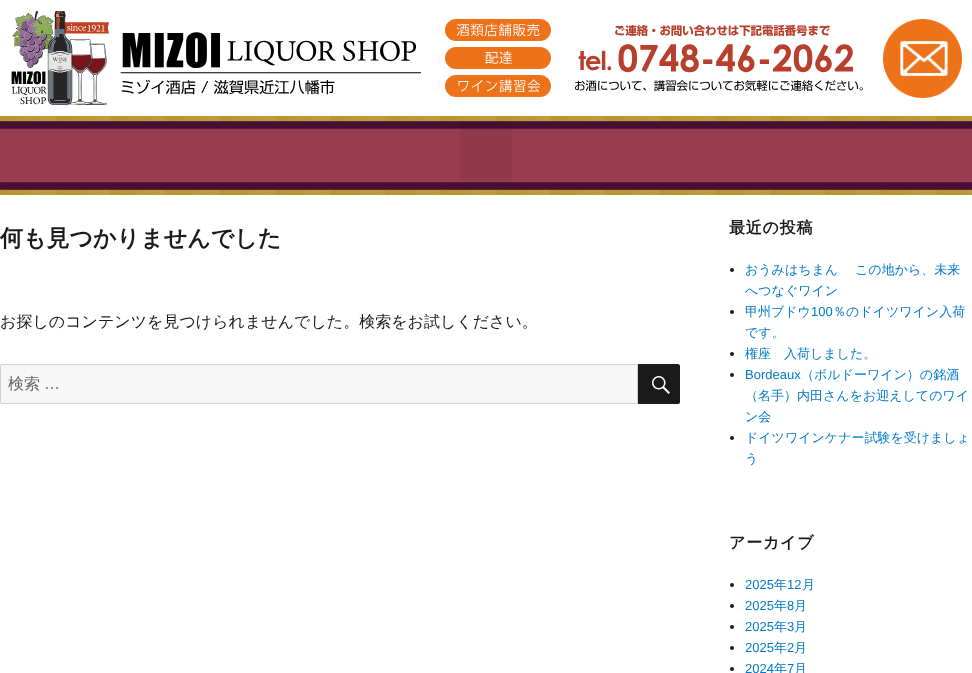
<svg xmlns="http://www.w3.org/2000/svg" xmlns:xlink="http://www.w3.org/1999/xlink" width="972" height="673" viewBox="0 0 972 673">
<style>
.cls-1{font:bold 23px WenQuanYi Zen Hei;fill:#1a1a1a}
.cls-2{font:500 16px WenQuanYi Zen Hei;fill:#1a1a1a}
.cls-3{font:500 16px WenQuanYi Zen Hei;fill:#686868}
.cls-4{font:16px Liberation Sans;fill:#686868}
.cls-5{font:bold 16px WenQuanYi Zen Hei;letter-spacing:0.75px;fill:#1a1a1a}
.cls-6{font:500 13px WenQuanYi Zen Hei;fill:#007acc}
.cls-7{font:13px Liberation Sans;fill:#007acc}
</style>
<rect width="100%" height="100%" fill="#ffffff"/>
<image xlink:href="image0.png" x="11" y="10" width="410" height="95"/>
<image xlink:href="image1.png" x="445" y="19" width="106" height="78"/>
<image xlink:href="image2.png" x="575" y="25" width="288" height="66"/>
<image xlink:href="image3.png" x="883" y="19" width="79" height="79"/>
<image xlink:href="image4.png" x="0" y="116" width="972" height="79"/>
<rect fill="#000000" fill-opacity="0.05" x="460" y="121" width="52" height="60"/>
<path fill="#f7f7f7" stroke="#d1d1d1" d="M2 364.5H637.5V403.5H2C1 403.5 .5 403 .5 402V366C.5 365 1 364.5 2 364.5Z"/>
<path fill="#1a1a1a" d="M638 364H678C679 364 680 365 680 366V402C680 403 679 404 678 404H638Z"/>
<image xlink:href="image5.png" x="652" y="376" width="18" height="18"/>
<circle fill="#1a1a1a" cx="732" cy="270" r="2"/>
<circle fill="#1a1a1a" cx="732" cy="312" r="2"/>
<circle fill="#1a1a1a" cx="732" cy="354" r="2"/>
<circle fill="#1a1a1a" cx="732" cy="375" r="2"/>
<circle fill="#1a1a1a" cx="732" cy="438" r="2"/>
<circle fill="#1a1a1a" cx="732" cy="585" r="2"/>
<circle fill="#1a1a1a" cx="732" cy="606" r="2"/>
<circle fill="#1a1a1a" cx="732" cy="627" r="2"/>
<circle fill="#1a1a1a" cx="732" cy="648" r="2"/>
<circle fill="#1a1a1a" cx="732" cy="669" r="2"/>
<text class="cls-1" x="0" y="246">何も見つかりませんでした</text>
<text class="cls-2" x="0" y="327">お探しのコンテンツを見つけられませんでした。検索をお試しください。</text>
<text class="cls-3" x="8" y="389">検索</text>
<text class="cls-4" x="44" y="389">…</text>
<text class="cls-5" x="729" y="233">最近の投稿</text>
<text class="cls-6"><tspan x="745" y="274">おうみはちまん　 この地から、未来</tspan><tspan x="745" y="295">へつなぐワイン</tspan><tspan x="745" y="316">甲州ブドウ</tspan></text>
<text class="cls-7" x="811" y="316">100</text>
<text class="cls-6" x="833" y="316">％のドイツワイン入荷</text>
<text class="cls-6"><tspan x="745" y="337">です。</tspan><tspan x="745" y="358">権座　入荷しました。</tspan></text>
<text class="cls-7" x="745" y="379">Bordeaux</text>
<text class="cls-6" x="801" y="379">（ボルドーワイン）の銘酒</text>
<text class="cls-6"><tspan x="745" y="400">（名手）内田さんをお迎えしてのワイ</tspan><tspan x="745" y="421">ン会</tspan><tspan x="745" y="442">ドイツワインケナー試験を受けましょ</tspan><tspan x="745" y="463">う</tspan></text>
<text class="cls-5" x="729" y="548">アーカイブ</text>
<text class="cls-7" x="745" y="589">2025</text>
<text class="cls-6" x="774" y="589">年</text>
<text class="cls-7" x="787" y="589">12</text>
<text class="cls-6" x="802" y="589">月</text>
<text class="cls-7" x="745" y="610">2025</text>
<text class="cls-6" x="774" y="610">年</text>
<text class="cls-7" x="787" y="610">8</text>
<text class="cls-6" x="794" y="610">月</text>
<text class="cls-7" x="745" y="631">2025</text>
<text class="cls-6" x="774" y="631">年</text>
<text class="cls-7" x="787" y="631">3</text>
<text class="cls-6" x="794" y="631">月</text>
<text class="cls-7" x="745" y="652">2025</text>
<text class="cls-6" x="774" y="652">年</text>
<text class="cls-7" x="787" y="652">2</text>
<text class="cls-6" x="794" y="652">月</text>
<text class="cls-7" x="745" y="673">2024</text>
<text class="cls-6" x="774" y="673">年</text>
<text class="cls-7" x="787" y="673">7</text>
<text class="cls-6" x="794" y="673">月</text>
</svg>
